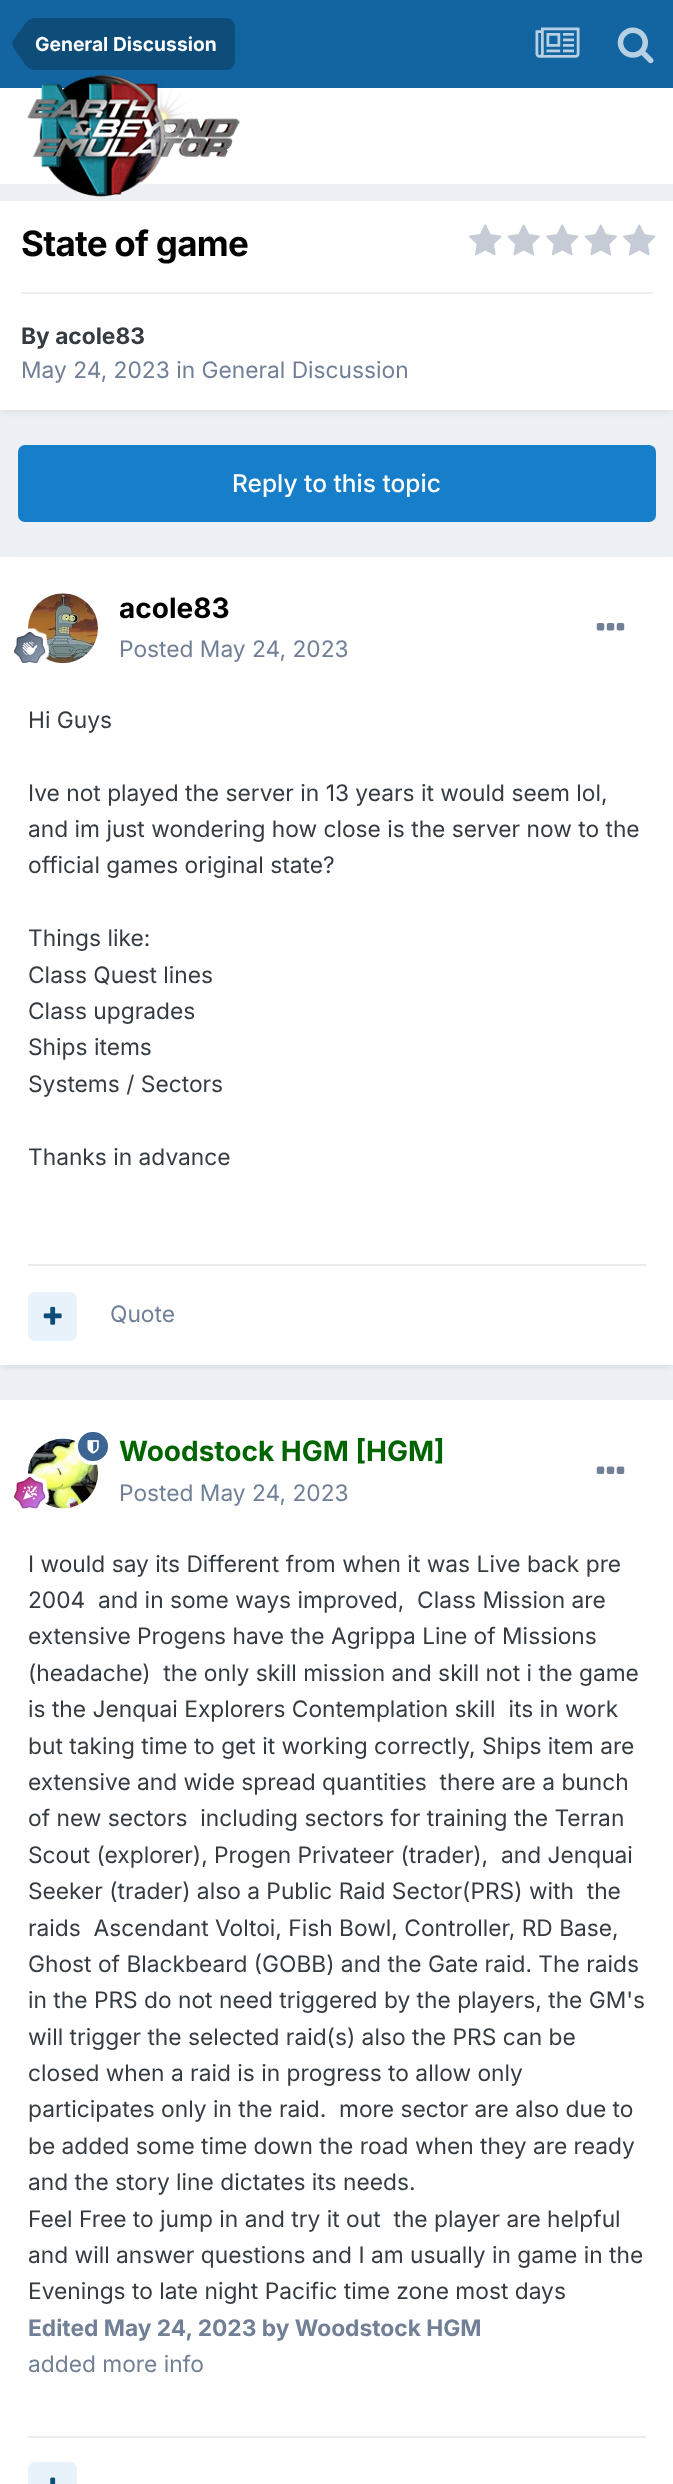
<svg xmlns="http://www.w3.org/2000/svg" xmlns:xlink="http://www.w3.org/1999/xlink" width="673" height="2484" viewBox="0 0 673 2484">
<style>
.cls-1{font:bold 19.25px Inter;fill:#ffffff}
.cls-2{font:bold 35px Inter;letter-spacing:-0.75px;fill:#000000}
.cls-3{font:bold 22.75px Inter;fill:#353c41}
.cls-4{font:22.75px Inter;fill:#718096}
.cls-5{font:500 24.5px Inter;fill:#ffffff}
.cls-6{font:bold 28px Inter;fill:#000000}
.cls-7{font:22.75px Inter;fill:#353c41}
.cls-8{font:bold 28px Inter;fill:#006400}
.cls-9{font:bold 22.75px Inter;fill:#718096}
</style>
<rect width="100%" height="100%" fill="#edf0f4"/>
<rect fill="#1265a1" x="0" y="0" width="673" height="88"/>
<path fill="#0e4c79" d="M35 18H226C231 18 235 22 235 27V61C235 66 231 70 226 70H35Z"/>
<path fill="#0e4c79" d="M13 47L12.5 44H35V70C27.5 70 24 62.5 20.5 57.5ZM35 18V44H12.5V41L25 24C27.5 20 31 18 35 18Z"/>
<image xlink:href="image0.png" x="535" y="27" width="45" height="31"/>
<image xlink:href="image1.png" x="617" y="27" width="37" height="37"/>
<rect fill="#ffffff" x="0" y="88" width="673" height="96"/>
<image xlink:href="image2.png" x="27" y="74" width="213" height="123"/>
<rect fill="#2d3748" fill-opacity="0.1" filter="blur(3.5px)" x="2" y="207" width="670" height="204"/>
<rect fill="#ffffff" x="0" y="201" width="673" height="209"/>
<image xlink:href="image3.png" x="469" y="224" width="33" height="32"/>
<image xlink:href="image4.png" x="507" y="224" width="33" height="32"/>
<image xlink:href="image5.png" x="546" y="224" width="33" height="32"/>
<image xlink:href="image4.png" x="584" y="224" width="33" height="32"/>
<image xlink:href="image5.png" x="623" y="224" width="33" height="32"/>
<rect fill="#efeff0" x="21" y="292" width="632" height="2"/>
<rect fill="#177ec9" x="18" y="445" width="638" height="77" rx="7"/>
<rect fill="#2d3748" fill-opacity="0.1" filter="blur(3.5px)" x="2" y="562" width="670" height="805"/>
<rect fill="#ffffff" x="0" y="557" width="673" height="808"/>
<image xlink:href="image6.png" x="28" y="593" width="70" height="71"/>
<image xlink:href="image7.png" x="14" y="628" width="36" height="35"/>
<image xlink:href="image8.png" x="596" y="623" width="29" height="8"/>
<rect fill="#ebecec" x="28" y="1264" width="618" height="2"/>
<rect fill="#e8f2fa" x="28" y="1292" width="49" height="49" rx="7"/>
<image xlink:href="image9.png" x="43" y="1306" width="19" height="19"/>
<rect fill="#ffffff" x="0" y="1400" width="673" height="1084"/>
<image xlink:href="image11.png" x="28" y="1438" width="70" height="71"/>
<rect fill="#3d6594" stroke="#ffffff" stroke-width="4" x="76" y="1430" width="34" height="33" rx="16.5"/>
<image xlink:href="image10.png" x="87" y="1440" width="12" height="14"/>
<image xlink:href="image12.png" x="14" y="1473" width="36" height="36"/>
<image xlink:href="image13.png" x="596" y="1466" width="29" height="8"/>
<rect fill="#ebecec" x="28" y="2436" width="618" height="2"/>
<rect fill="#e8f2fa" x="28" y="2462" width="49" height="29" rx="7"/>
<image xlink:href="image14.png" x="50" y="2477" width="6" height="7"/>
<text class="cls-1" x="35" y="51">General Discussion</text>
<text class="cls-2" x="21" y="256">State of game</text>
<text class="cls-3" x="21" y="344">By acole83</text>
<text class="cls-4" x="21" y="378">May 24, 2023 in General Discussion</text>
<text class="cls-5" x="232" y="492">Reply to this topic</text>
<text class="cls-6" x="119" y="618">acole83</text>
<text class="cls-4" x="119" y="657">Posted May 24, 2023</text>
<text class="cls-7" x="28" y="728">Hi Guys</text>
<text class="cls-7"><tspan x="28" y="801">Ive not played the server in 13 years it would seem lol,</tspan><tspan x="28" y="837">and im just wondering how close is the server now to the</tspan><tspan x="28" y="873">official games original state?</tspan></text>
<text class="cls-7"><tspan x="28" y="946">Things like:</tspan><tspan x="28" y="983">Class Quest lines</tspan><tspan x="28" y="1019">Class upgrades</tspan><tspan x="28" y="1055">Ships items</tspan><tspan x="28" y="1092">Systems / Sectors</tspan></text>
<text class="cls-7" x="28" y="1165">Thanks in advance</text>
<text class="cls-4" x="110" y="1322">Quote</text>
<text class="cls-8" x="119" y="1461">Woodstock HGM [HGM]</text>
<text class="cls-4" x="119" y="1501">Posted May 24, 2023</text>
<text class="cls-7" xml:space="preserve"><tspan x="28" y="1572">I would say its Different from when it was Live back pre</tspan><tspan x="28" y="1608">2004  and in some ways improved,  Class Mission are</tspan><tspan x="28" y="1644">extensive Progens have the Agrippa Line of Missions</tspan><tspan x="28" y="1681">(headache)  the only skill mission and skill not i the game</tspan><tspan x="28" y="1717">is the Jenquai Explorers Contemplation skill  its in work</tspan><tspan x="28" y="1754">but taking time to get it working correctly, Ships item are</tspan><tspan x="28" y="1790">extensive and wide spread quantities  there are a bunch</tspan><tspan x="28" y="1826">of new sectors  including sectors for training the Terran</tspan><tspan x="28" y="1863">Scout (explorer), Progen Privateer (trader),  and Jenquai</tspan><tspan x="28" y="1899">Seeker (trader) also a Public Raid Sector(PRS) with  the</tspan><tspan x="28" y="1936">raids  Ascendant Voltoi, Fish Bowl, Controller, RD Base,</tspan><tspan x="28" y="1972">Ghost of Blackbeard (GOBB) and the Gate raid. The raids</tspan><tspan x="28" y="2008">in the PRS do not need triggered by the players, the GM's</tspan><tspan x="28" y="2045">will trigger the selected raid(s) also the PRS can be</tspan><tspan x="28" y="2081">closed when a raid is in progress to allow only</tspan><tspan x="28" y="2117">participates only in the raid.  more sector are also due to</tspan><tspan x="28" y="2154">be added some time down the road when they are ready</tspan><tspan x="28" y="2190">and the story line dictates its needs.</tspan><tspan x="28" y="2227">Feel Free to jump in and try it out  the player are helpful</tspan><tspan x="28" y="2263">and will answer questions and I am usually in game in the</tspan><tspan x="28" y="2299">Evenings to late night Pacific time zone most days</tspan></text>
<text class="cls-9" x="28" y="2336">Edited May 24, 2023 by Woodstock HGM</text>
<text class="cls-4" x="28" y="2372">added more info</text>
</svg>
